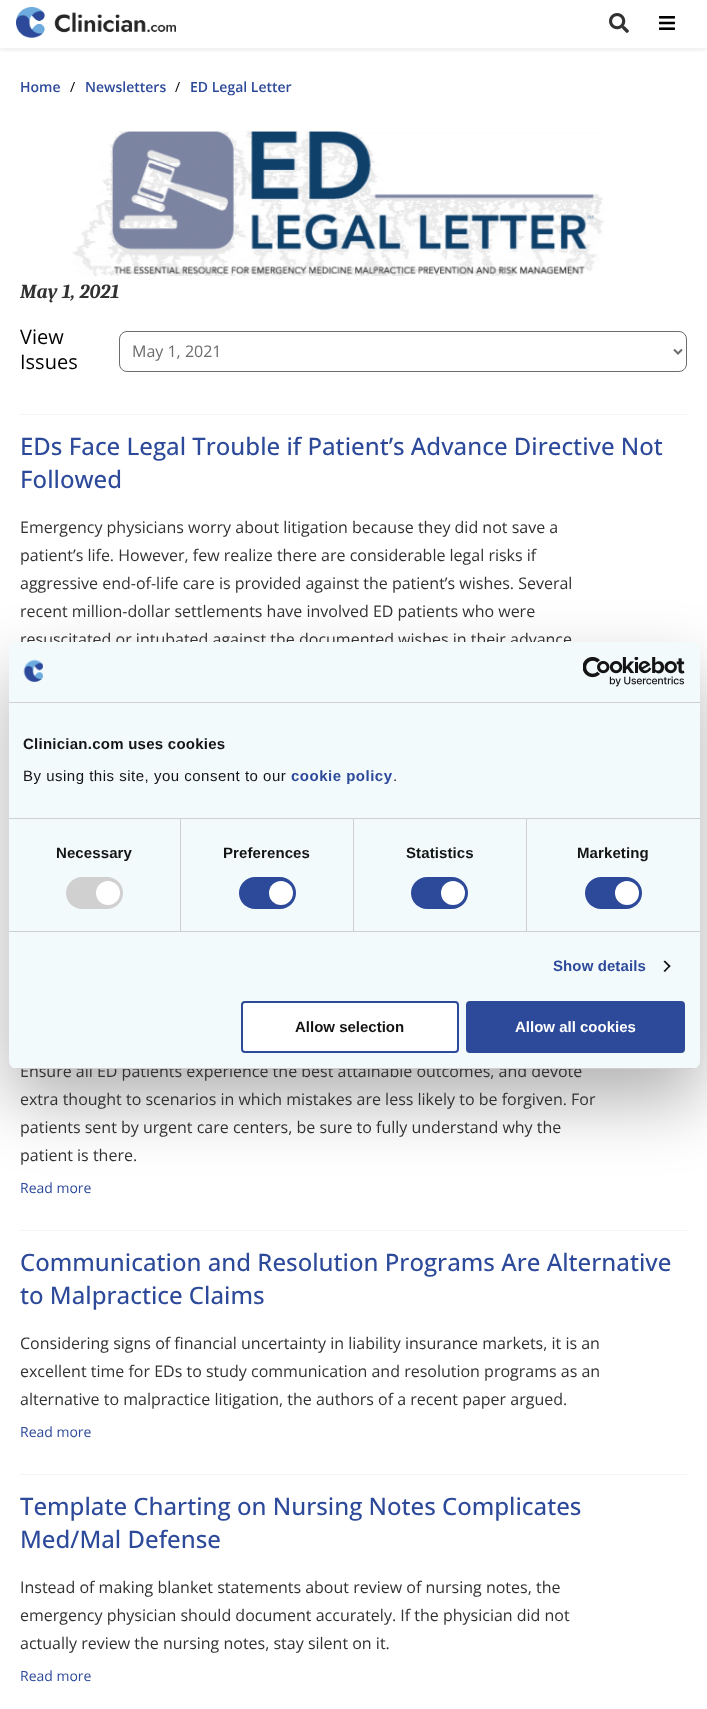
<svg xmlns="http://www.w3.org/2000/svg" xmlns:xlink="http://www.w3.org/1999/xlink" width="707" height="1709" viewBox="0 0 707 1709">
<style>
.cls-1{font:600 14px Open Sans;fill:#2d4a9a}
.cls-2{font:14px Open Sans;fill:#000000}
.cls-3{font:italic bold 20px Caladea;fill:#323232}
.cls-4{font:20px Open Sans;fill:#000000}
.cls-5{font:16px Open Sans;fill:#6c6c6c}
.cls-6{font:500 24px Open Sans;fill:#2d4a9a}
.cls-7{font:16px Open Sans;fill:#323232}
.cls-8{font:14px Open Sans;fill:#2d4a9a}
.cls-9{font:bold 15px Liberation Sans;letter-spacing:0.25px;fill:#141414}
.cls-10{font:15px Liberation Sans;letter-spacing:0.5px;fill:#141414}
.cls-11{font:bold 15px Liberation Sans;letter-spacing:0.5px;fill:#2d4a9a}
.cls-12{font:bold 15px Liberation Sans;letter-spacing:0.1px;fill:#141414}
.cls-13{font:bold 15px Liberation Sans;letter-spacing:0.1px;fill:#2d4a9a}
.cls-14{font:bold 15px Liberation Sans;fill:#141414}
.cls-15{font:bold 15px Liberation Sans;fill:#ffffff}
</style>
<defs>
<clipPath id="clip1"><rect x="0" y="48" width="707" height="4"/></clipPath>
<clipPath id="clip2"><rect x="9" y="642" width="691" height="427" rx="8"/></clipPath>
</defs>
<rect width="100%" height="100%" fill="#ffffff"/>
<g clip-path="url(#clip1)">
<rect fill="#000000" fill-opacity="0.1" filter="blur(3.5px)" x="0" y="1" width="707" height="48"/>
</g>
<image xlink:href="image0.png" x="16" y="7" width="160" height="31"/>
<image xlink:href="image1.png" x="609" y="13" width="20" height="20"/>
<image xlink:href="image2.png" x="659" y="16" width="16" height="14"/>
<image xlink:href="image3.png" x="72" y="131" width="532" height="145"/>
<rect fill="none" stroke="#6c6c6c" x="119.5" y="331.5" width="567" height="40" rx="7.5"/>
<path fill="none" stroke="#6c6c6c" stroke-width="2" d="M674 349.5L678 353.5L682 349.5"/>
<rect fill="#f4f4f2" x="20" y="414" width="667" height="1"/>
<rect fill="#f4f4f2" x="20" y="1230" width="667" height="1"/>
<rect fill="#f4f4f2" x="20" y="1474" width="667" height="1"/>
<rect fill="#000000" fill-opacity="0.3" filter="blur(34px)" x="9" y="674" width="691" height="427" rx="8"/>
<text class="cls-1" x="20" y="92">Home</text>
<text class="cls-2" x="70" y="92">/</text>
<text class="cls-1" x="85" y="92">Newsletters</text>
<text class="cls-2" x="175" y="92">/</text>
<text class="cls-1" x="190" y="92">ED Legal Letter</text>
<text class="cls-3" x="20" y="298">May 1, 2021</text>
<text class="cls-4"><tspan x="20" y="344">View</tspan><tspan x="20" y="369">Issues</tspan></text>
<text class="cls-5" x="132" y="357">May 1, 2021</text>
<text class="cls-6"><tspan x="20" y="455">EDs Face Legal Trouble if Patient’s Advance Directive Not</tspan><tspan x="20" y="488">Followed</tspan></text>
<text class="cls-7"><tspan x="20" y="533">Emergency physicians worry about litigation because they did not save a</tspan><tspan x="20" y="561">patient’s life. However, few realize there are considerable legal risks if</tspan><tspan x="20" y="589">aggressive end-of-life care is provided against the patient’s wishes. Several</tspan><tspan x="20" y="617">recent million-dollar settlements have involved ED patients who were</tspan><tspan x="20" y="645">resuscitated or intubated against the documented wishes in their advance</tspan></text>
<text class="cls-7"><tspan x="20" y="1077">Ensure all ED patients experience the best attainable outcomes, and devote</tspan><tspan x="20" y="1105">extra thought to scenarios in which mistakes are less likely to be forgiven. For</tspan><tspan x="20" y="1133">patients sent by urgent care centers, be sure to fully understand why the</tspan><tspan x="20" y="1161">patient is there.</tspan></text>
<text class="cls-8" x="20" y="1193">Read more</text>
<text class="cls-6"><tspan x="20" y="1271">Communication and Resolution Programs Are Alternative</tspan><tspan x="20" y="1304">to Malpractice Claims</tspan></text>
<text class="cls-7"><tspan x="20" y="1349">Considering signs of financial uncertainty in liability insurance markets, it is an</tspan><tspan x="20" y="1377">excellent time for EDs to study communication and resolution programs as an</tspan><tspan x="20" y="1405">alternative to malpractice litigation, the authors of a recent paper argued.</tspan></text>
<text class="cls-8" x="20" y="1437">Read more</text>
<text class="cls-6"><tspan x="20" y="1515">Template Charting on Nursing Notes Complicates</tspan><tspan x="20" y="1548">Med/Mal Defense</tspan></text>
<text class="cls-7"><tspan x="20" y="1593">Instead of making blanket statements about review of nursing notes, the</tspan><tspan x="20" y="1621">emergency physician should document accurately. If the physician did not</tspan><tspan x="20" y="1649">actually review the nursing notes, stay silent on it.</tspan></text>
<text class="cls-8" x="20" y="1681">Read more</text>
<rect fill="#f3fafc" x="9" y="642" width="691" height="427" rx="8"/>
<rect fill="#d0d0d0" x="9" y="702" width="691" height="1"/>
<image xlink:href="image4.png" x="23" y="659" width="20" height="23"/>
<image xlink:href="image5.png" x="583" y="657" width="102" height="30"/>
<rect fill="#d0d0d0" x="9" y="818" width="691" height="1"/>
<text class="cls-9" x="23" y="749">Clinician.com uses cookies</text>
<text class="cls-10" x="23" y="781">By using this site, you consent to our</text>
<text class="cls-11" x="291" y="781">cookie policy</text>
<text class="cls-10" x="393" y="781">.</text>
<rect fill="#d0d0d0" x="9" y="931" width="691" height="1"/>
<rect fill="#d0d0d0" x="180" y="819" width="1" height="112"/>
<text class="cls-12" x="56" y="858">Necessary</text>
<rect fill="#d0d0d0" x="66" y="877" width="57" height="32" rx="16"/>
<circle fill="#ffffff" cx="108" cy="893" r="12"/>
<rect fill="#d0d0d0" x="353" y="819" width="1" height="112"/>
<text class="cls-12" x="223" y="858">Preferences</text>
<rect fill="#2d4a9a" x="239" y="877" width="57" height="32" rx="16"/>
<circle fill="#ffffff" cx="281" cy="893" r="12"/>
<rect fill="#d0d0d0" x="526" y="819" width="1" height="112"/>
<text class="cls-12" x="406" y="858">Statistics</text>
<rect fill="#2d4a9a" x="411" y="877" width="57" height="32" rx="16"/>
<circle fill="#ffffff" cx="453" cy="893" r="12"/>
<text class="cls-12" x="577" y="858">Marketing</text>
<rect fill="#2d4a9a" x="585" y="877" width="57" height="32" rx="16"/>
<circle fill="#ffffff" cx="627" cy="893" r="12"/>
<text class="cls-13" x="553" y="971">Show details</text>
<path fill="#141414" d="M665 960.5L670.5 966L669.5 967.5L663.5 961.5Z"/>
<path fill="#141414" d="M669.5 965L670.5 966L665 972L663.5 971Z"/>
<g clip-path="url(#clip2)">
<rect fill="#d0d0d0" x="9" y="1068" width="691" height="1"/>
</g>
<rect fill="#ffffff" stroke="#2d4a9a" stroke-width="2" x="242" y="1002" width="216" height="50" rx="3"/>
<text class="cls-14" x="295" y="1032">Allow selection</text>
<rect fill="#2d4a9a" stroke="#2d4a9a" stroke-width="2" x="467" y="1002" width="217" height="50" rx="3"/>
<text class="cls-15" x="515" y="1032">Allow all cookies</text>
</svg>
